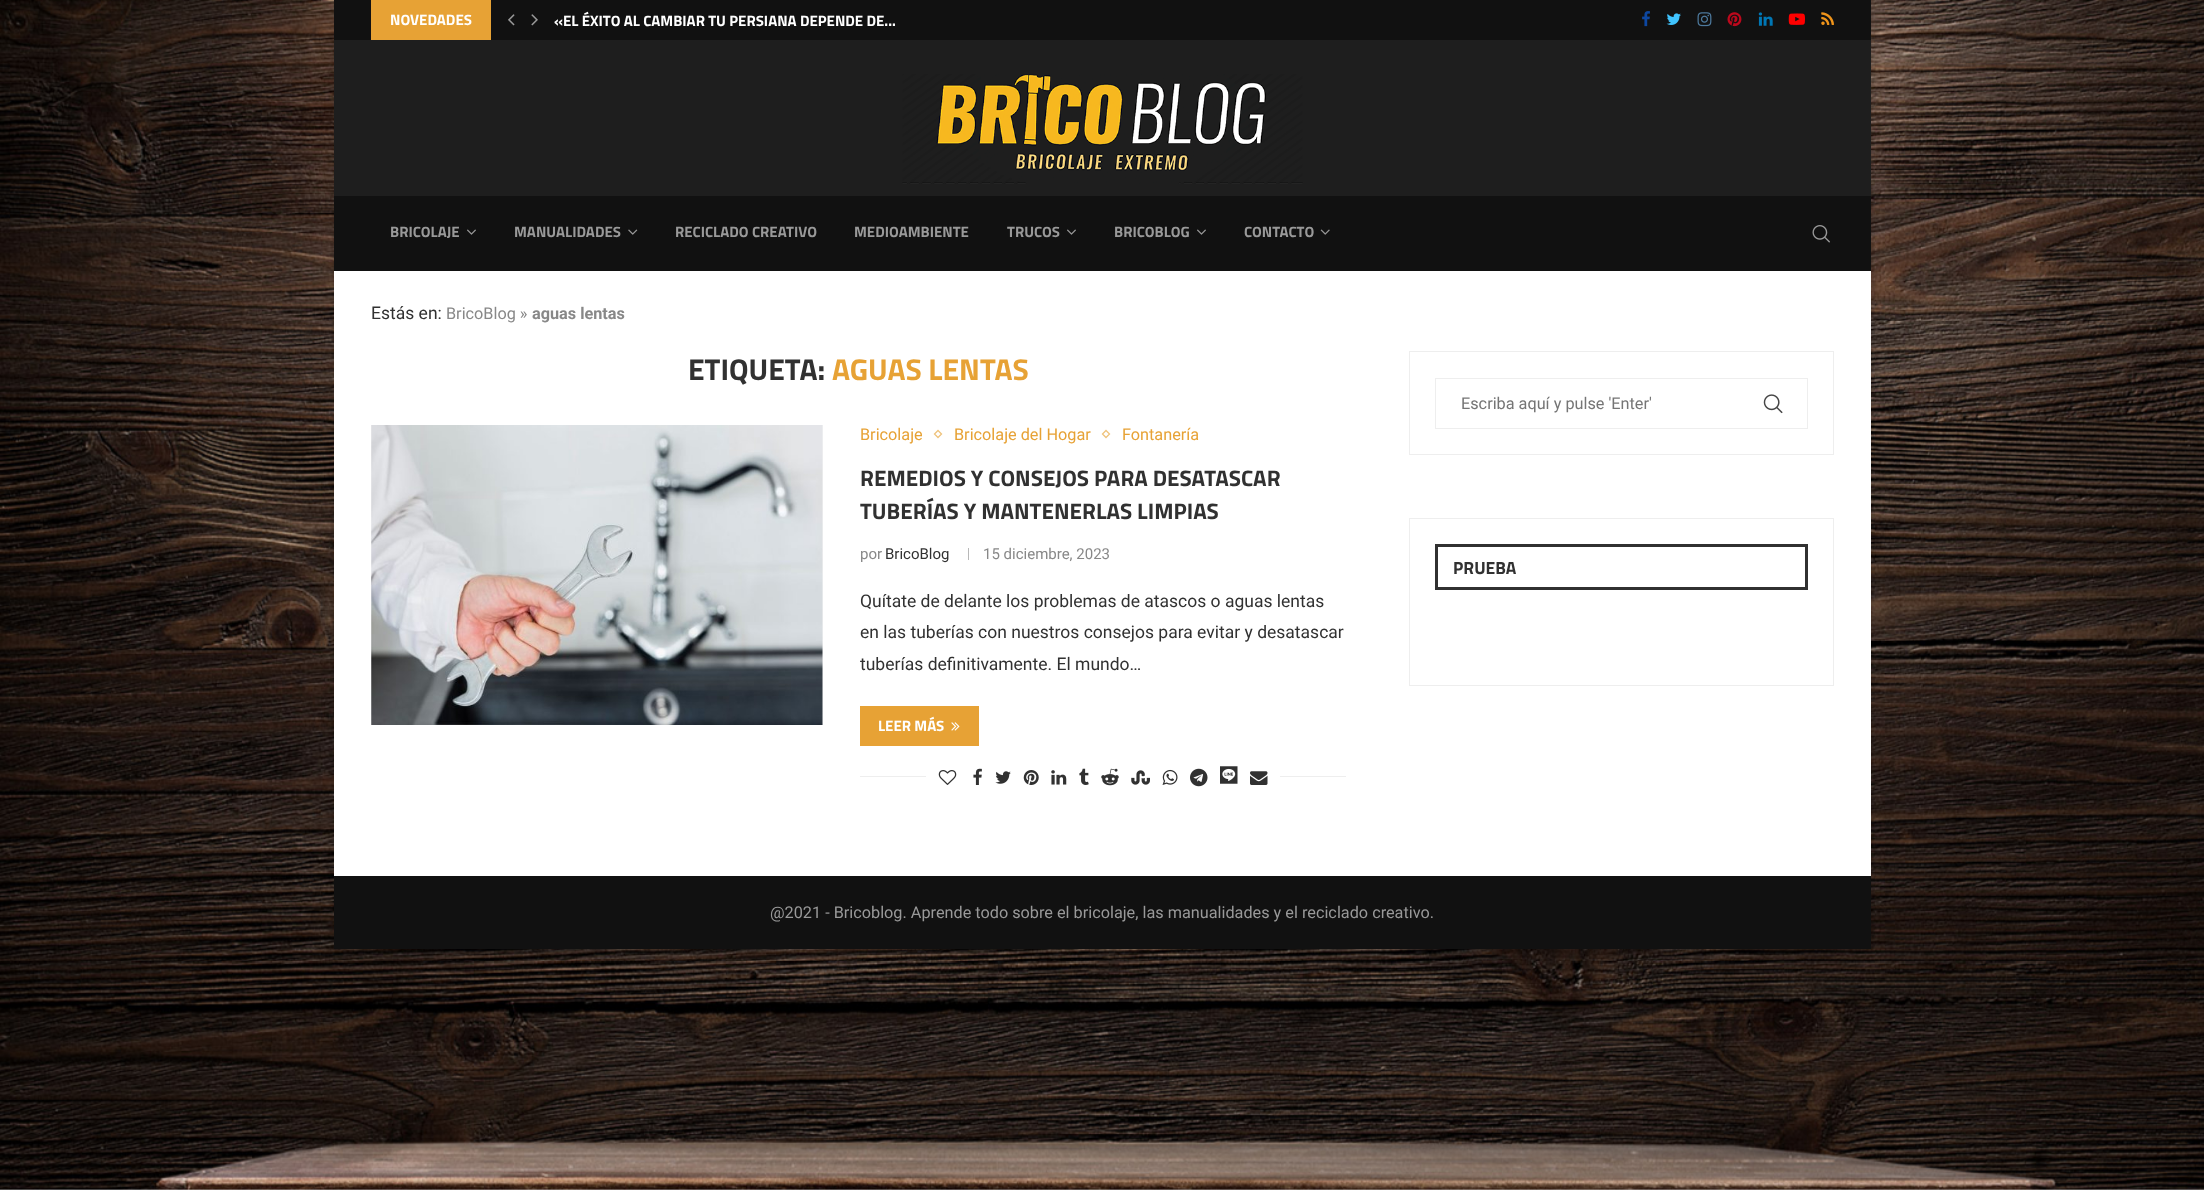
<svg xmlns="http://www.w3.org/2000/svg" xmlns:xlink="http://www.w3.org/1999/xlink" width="2204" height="1190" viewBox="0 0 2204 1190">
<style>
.cls-1{font:bold 15px Titillium Web;fill:#ffffff}
.cls-2{font:bold 15px Titillium Web;fill:#999999}
.cls-3{font:17.5px Roboto;fill:#313131}
.cls-4{font:16.25px Roboto;fill:#888888}
.cls-5{font:bold 16.25px Roboto;fill:#888888}
.cls-6{font:bold 30px Titillium Web;fill:#313131}
.cls-7{font:bold 30px Titillium Web;fill:#e7a235}
.cls-8{font:16.25px Roboto;fill:#e7a235}
.cls-9{font:bold 22.5px Titillium Web;fill:#313131}
.cls-10{font:15px Roboto;fill:#888888}
.cls-11{font:15px Roboto;fill:#313131}
.cls-12{font:16.25px Roboto;fill:#757575}
.cls-13{font:bold 17.5px Titillium Web;fill:#313131}
.cls-14{font:16.25px Roboto;fill:#999999}
</style>
<rect width="100%" height="100%" fill="#ffffff"/>
<image xlink:href="image0.png" x="0" y="0" width="2204" height="1190"/>
<rect fill="#000000" fill-opacity="0.2" filter="blur(5px)" x="334" y="6" width="1537" height="949"/>
<rect fill="#ffffff" x="334" y="271" width="1537" height="605"/>
<rect fill="#111111" x="334" y="0" width="1537" height="40"/>
<rect fill="#e7a235" x="371" y="0" width="120" height="40"/>
<image xlink:href="image1.png" x="508" y="14" width="7" height="12"/>
<image xlink:href="image2.png" x="531" y="14" width="7" height="12"/>
<image xlink:href="image3.png" x="1642" y="11" width="8" height="16"/>
<image xlink:href="image4.png" x="1666" y="13" width="15" height="12"/>
<image xlink:href="image5.png" x="1697" y="12" width="15" height="15"/>
<image xlink:href="image6.png" x="1727" y="12" width="15" height="15"/>
<image xlink:href="image7.png" x="1758" y="12" width="15" height="14"/>
<image xlink:href="image8.png" x="1788" y="13" width="17" height="12"/>
<image xlink:href="image9.png" x="1821" y="12" width="13" height="13"/>
<rect fill="#1e1e1e" x="334" y="40" width="1537" height="156"/>
<image xlink:href="image10.png" x="902" y="74" width="401" height="110"/>
<rect fill="#111111" x="334" y="196" width="1537" height="75"/>
<image xlink:href="image11.png" x="467" y="229" width="9" height="6"/>
<image xlink:href="image12.png" x="628" y="229" width="10" height="6"/>
<image xlink:href="image11.png" x="1067" y="229" width="9" height="6"/>
<image xlink:href="image11.png" x="1197" y="229" width="9" height="6"/>
<image xlink:href="image13.png" x="1320" y="229" width="10" height="6"/>
<image xlink:href="image14.png" x="1812" y="225" width="18" height="18"/>
<rect fill="#f5f5f5" x="371" y="425" width="452" height="300"/>
<image xlink:href="image15.png" x="371" y="425" width="452" height="300"/>
<path fill="none" stroke="#efc37c" stroke-width="1.3" d="M938 430.5L941.5 434L938 437.5L934.5 434Z"/>
<path fill="none" stroke="#efc37c" stroke-width="1.3" d="M1106 430.5L1109.5 434L1106 437.5L1102.5 434Z"/>
<rect fill="#b8b8b8" x="968" y="548" width="1" height="12"/>
<rect fill="#e7a235" x="860" y="706" width="119" height="40"/>
<image xlink:href="image16.png" x="951" y="722" width="9" height="9"/>
<rect fill="#eeeeee" x="860" y="776" width="486" height="1"/>
<rect fill="#ffffff" x="926" y="776" width="354" height="1"/>
<image xlink:href="image17.png" x="938" y="770" width="19" height="15"/>
<image xlink:href="image18.png" x="973" y="768" width="9" height="17"/>
<image xlink:href="image19.png" x="995" y="771" width="16" height="13"/>
<image xlink:href="image20.png" x="1023" y="770" width="16" height="15"/>
<image xlink:href="image21.png" x="1051" y="770" width="16" height="15"/>
<image xlink:href="image22.png" x="1079" y="768" width="10" height="17"/>
<image xlink:href="image23.png" x="1101" y="768" width="18" height="18"/>
<image xlink:href="image24.png" x="1131" y="770" width="19" height="15"/>
<image xlink:href="image25.png" x="1162" y="769" width="16" height="16"/>
<image xlink:href="image26.png" x="1190" y="768" width="18" height="19"/>
<image xlink:href="image27.png" x="1220" y="766" width="18" height="18"/>
<image xlink:href="image28.png" x="1250" y="771" width="18" height="14"/>
<rect fill="none" stroke="#eeeeee" x="1409.5" y="351.5" width="424" height="103"/>
<rect fill="none" stroke="#eeeeee" x="1435.5" y="378.5" width="372" height="50"/>
<image xlink:href="image29.png" x="1763" y="394" width="20" height="20"/>
<rect fill="none" stroke="#eeeeee" x="1409.5" y="518.5" width="424" height="167"/>
<rect fill="none" stroke="#313131" stroke-width="3" x="1436.5" y="545.5" width="370" height="43"/>
<rect fill="#111111" x="334" y="876" width="1537" height="73"/>
<text class="cls-1" x="390" y="25">NOVEDADES</text>
<text class="cls-1" x="554" y="26">«EL ÉXITO AL CAMBIAR TU PERSIANA DEPENDE DE...</text>
<text class="cls-2" x="390" y="237">BRICOLAJE</text>
<text class="cls-2" x="514" y="237">MANUALIDADES</text>
<text class="cls-2" x="675" y="237">RECICLADO CREATIVO</text>
<text class="cls-2" x="854" y="237">MEDIOAMBIENTE</text>
<text class="cls-2" x="1007" y="237">TRUCOS</text>
<text class="cls-2" x="1114" y="237">BRICOBLOG</text>
<text class="cls-2" x="1244" y="237">CONTACTO</text>
<text class="cls-3" x="371" y="319">Estás en:</text>
<text class="cls-4" x="446" y="319">BricoBlog »</text>
<text class="cls-5" x="532" y="319">aguas lentas</text>
<text class="cls-6" x="688" y="380">ETIQUETA:</text>
<text class="cls-7" x="832" y="380">AGUAS LENTAS</text>
<text class="cls-8" x="860" y="440">Bricolaje</text>
<text class="cls-8" x="954" y="440">Bricolaje del Hogar</text>
<text class="cls-8" x="1122" y="440">Fontanería</text>
<text class="cls-9"><tspan x="860" y="486">REMEDIOS Y CONSEJOS PARA DESATASCAR</tspan><tspan x="860" y="519">TUBERÍAS Y MANTENERLAS LIMPIAS</tspan></text>
<text class="cls-10" x="860" y="559">por</text>
<text class="cls-11" x="885" y="559">BricoBlog</text>
<text class="cls-10" x="983" y="559">15 diciembre, 2023</text>
<text class="cls-3"><tspan x="860" y="607">Quítate de delante los problemas de atascos o aguas lentas</tspan><tspan x="860" y="638">en las tuberías con nuestros consejos para evitar y desatascar</tspan><tspan x="860" y="670">tuberías definitivamente. El mundo…</tspan></text>
<text class="cls-1" x="878" y="731">LEER MÁS</text>
<text class="cls-12" x="1461" y="409">Escriba aquí y pulse 'Enter'</text>
<text class="cls-13" x="1453" y="574">PRUEBA</text>
<text class="cls-14" x="770" y="918">@2021 - Bricoblog. Aprende todo sobre el bricolaje, las manualidades y el reciclado creativo.</text>
</svg>
